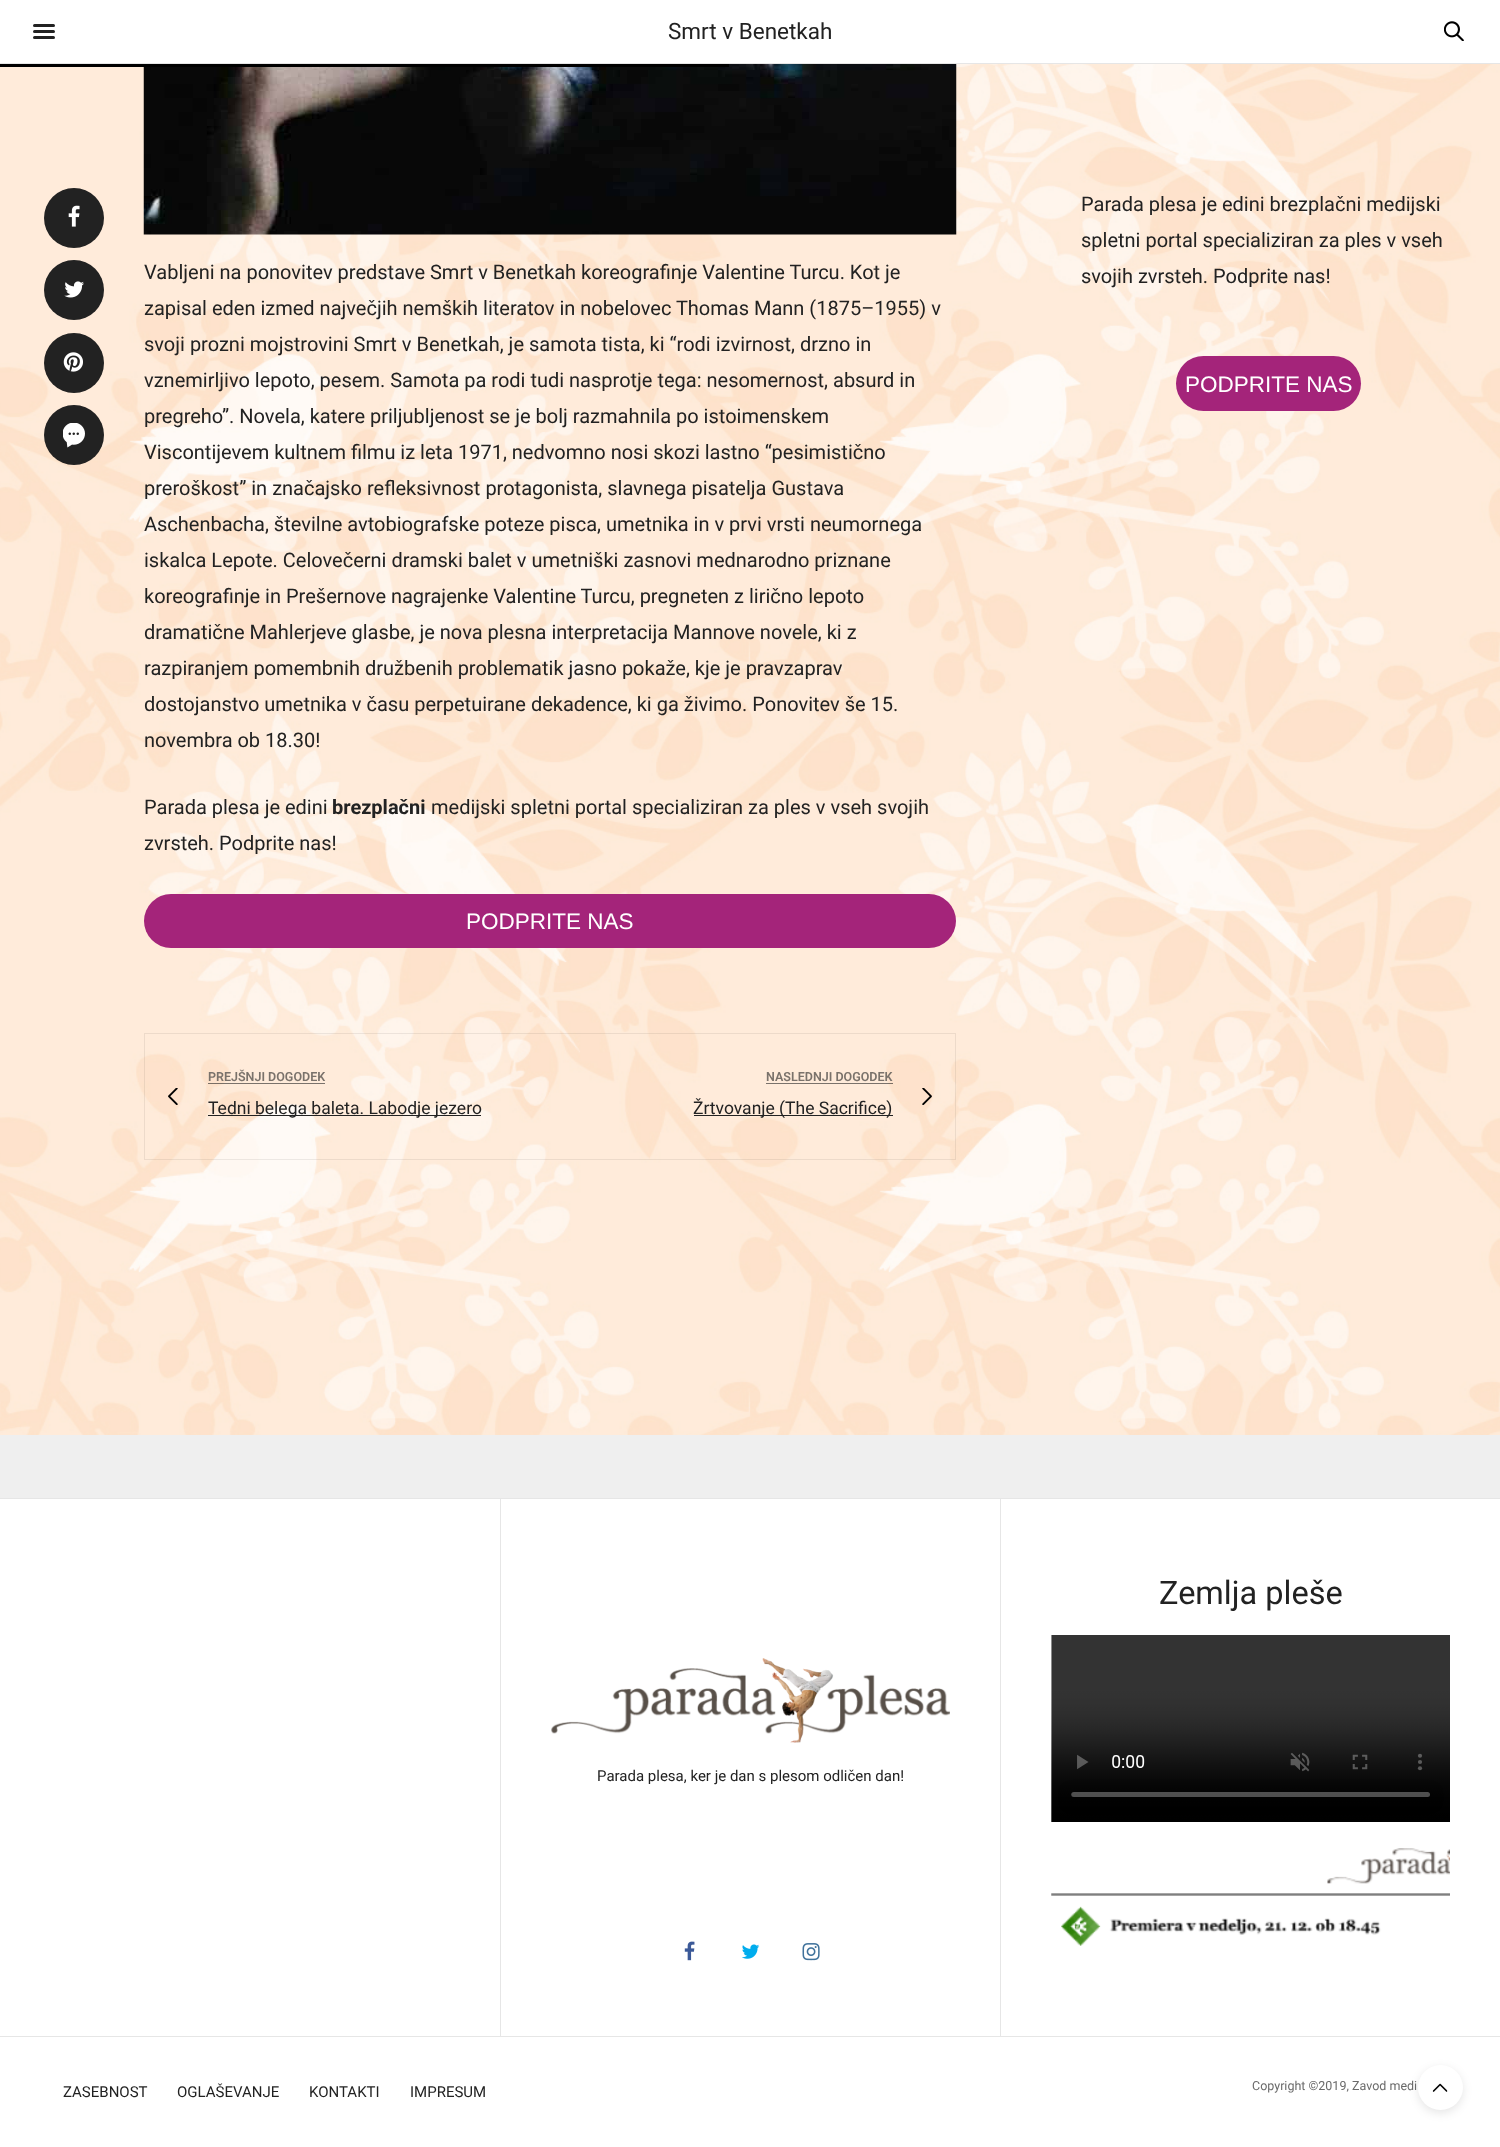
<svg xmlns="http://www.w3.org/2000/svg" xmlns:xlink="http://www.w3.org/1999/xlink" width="1500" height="2147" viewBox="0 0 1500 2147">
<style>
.cls-1{font:22.5px Roboto;fill:#222222}
.cls-2{font:20px Roboto;fill:#222222}
.cls-3{font:bold 20px Roboto;fill:#222222}
.cls-4{font:22.5px Liberation Sans;fill:#ffffff}
.cls-5{font:600 12.5px Roboto;fill:#7a726b}
.cls-6{font:17.5px Roboto;fill:#222222}
.cls-7{font:32.5px Roboto;fill:#222222}
.cls-8{font:15px Roboto;fill:#222222}
.cls-9{font:12.5px Roboto;fill:#6a6a6a}
</style>
<rect width="100%" height="100%" fill="#ffffff"/>
<image xlink:href="image0.png" x="0" y="64" width="1500" height="1371"/>
<rect fill="#e6e6e6" x="0" y="63" width="1500" height="1"/>
<rect fill="#222222" x="33" y="24" width="22" height="3" rx="1.5"/>
<rect fill="#222222" x="33" y="30" width="22" height="3" rx="1.5"/>
<rect fill="#222222" x="33" y="36" width="22" height="3" rx="1.5"/>
<image xlink:href="image1.png" x="1444" y="21" width="20" height="20"/>
<image xlink:href="image6.png" x="143" y="64" width="814" height="171"/>
<rect fill="#000000" x="0" y="64" width="729" height="3"/>
<circle fill="#222222" cx="74" cy="218" r="30"/>
<image xlink:href="image2.png" x="68" y="205" width="12" height="22"/>
<circle fill="#222222" cx="74" cy="290" r="30"/>
<image xlink:href="image3.png" x="64" y="281" width="20" height="17"/>
<circle fill="#222222" cx="74" cy="363" r="30"/>
<image xlink:href="image4.png" x="63" y="352" width="20" height="20"/>
<circle fill="#222222" cx="74" cy="435" r="30"/>
<image xlink:href="image5.png" x="63" y="423" width="22" height="25"/>
<rect fill="#a4247a" x="144" y="894" width="812" height="54" rx="27"/>
<rect fill="none" stroke="#000000" stroke-opacity="0.07" x="144.5" y="1033.5" width="811" height="126"/>
<rect fill="#222222" fill-opacity="0.6" x="208" y="1083" width="117" height="1"/>
<image xlink:href="image7.png" x="168" y="1088" width="10" height="17"/>
<rect fill="#222222" x="208" y="1115" width="273" height="1"/>
<rect fill="#222222" fill-opacity="0.6" x="766" y="1083" width="127" height="1"/>
<rect fill="#222222" x="694" y="1115" width="199" height="1"/>
<image xlink:href="image8.png" x="922" y="1088" width="10" height="17"/>
<rect fill="#a4247a" x="1176" y="356" width="185" height="55" rx="27.5"/>
<rect fill="#efefef" x="0" y="1435" width="1500" height="63"/>
<rect fill="#e6e6e6" x="0" y="1498" width="1500" height="1"/>
<rect fill="#e6e6e6" x="1000" y="1499" width="1" height="537"/>
<image xlink:href="image9.png" x="1051" y="1635" width="399" height="187"/>
<image xlink:href="image10.png" x="1051" y="1848" width="399" height="98"/>
<rect fill="#e6e6e6" x="500" y="1499" width="1" height="537"/>
<image xlink:href="image12.png" x="551" y="1668" width="399" height="66"/>
<image xlink:href="image11.png" x="762" y="1658" width="72" height="85"/>
<image xlink:href="image13.png" x="684" y="1941" width="11" height="20"/>
<image xlink:href="image14.png" x="742" y="1944" width="18" height="15"/>
<image xlink:href="image15.png" x="802" y="1943" width="18" height="18"/>
<rect fill="#e6e6e6" x="0" y="2036" width="1500" height="1"/>
<rect fill="#000000" fill-opacity="0.1" filter="blur(5px)" x="1418" y="2068" width="45" height="45" rx="22.5"/>
<circle fill="#ffffff" cx="1440.5" cy="2087.5" r="22.5"/>
<image xlink:href="image16.png" x="1432" y="2083" width="16" height="9"/>
<text class="cls-1" x="668" y="39">Smrt v Benetkah</text>
<text class="cls-2"><tspan x="144" y="279">Vabljeni na ponovitev predstave Smrt v Benetkah koreografinje Valentine Turcu. Kot je</tspan><tspan x="144" y="315">zapisal eden izmed največjih nemških literatov in nobelovec Thomas Mann (1875–1955) v</tspan><tspan x="144" y="351">svoji prozni mojstrovini Smrt v Benetkah, je samota tista, ki “rodi izvirnost, drzno in</tspan><tspan x="144" y="387">vznemirljivo lepoto, pesem. Samota pa rodi tudi nasprotje tega: nesomernost, absurd in</tspan><tspan x="144" y="423">pregreho”. Novela, katere priljubljenost se je bolj razmahnila po istoimenskem</tspan><tspan x="144" y="459">Viscontijevem kultnem filmu iz leta 1971, nedvomno nosi skozi lastno “pesimistično</tspan><tspan x="144" y="495">preroškost” in značajsko refleksivnost protagonista, slavnega pisatelja Gustava</tspan><tspan x="144" y="531">Aschenbacha, številne avtobiografske poteze pisca, umetnika in v prvi vrsti neumornega</tspan><tspan x="144" y="567">iskalca Lepote. Celovečerni dramski balet v umetniški zasnovi mednarodno priznane</tspan><tspan x="144" y="603">koreografinje in Prešernove nagrajenke Valentine Turcu, pregneten z lirično lepoto</tspan><tspan x="144" y="639">dramatične Mahlerjeve glasbe, je nova plesna interpretacija Mannove novele, ki z</tspan><tspan x="144" y="675">razpiranjem pomembnih družbenih problematik jasno pokaže, kje je pravzaprav</tspan><tspan x="144" y="711">dostojanstvo umetnika v času perpetuirane dekadence, ki ga živimo. Ponovitev še 15.</tspan><tspan x="144" y="747">novembra ob 18.30!</tspan></text>
<text class="cls-2" x="144" y="814">Parada plesa je edini</text>
<text class="cls-3" x="332" y="814">brezplačni</text>
<text class="cls-2" x="431" y="814">medijski spletni portal specializiran za ples v vseh svojih</text>
<text class="cls-2" x="144" y="850">zvrsteh. Podprite nas!</text>
<text class="cls-4" x="466" y="929">PODPRITE NAS</text>
<text class="cls-5" x="208" y="1081">PREJŠNJI DOGODEK</text>
<text class="cls-6" x="208" y="1114">Tedni belega baleta. Labodje jezero</text>
<text class="cls-5" x="766" y="1081">NASLEDNJI DOGODEK</text>
<text class="cls-6" x="693" y="1114">Žrtvovanje (The Sacrifice)</text>
<text class="cls-2"><tspan x="1081" y="211">Parada plesa je edini brezplačni medijski</tspan><tspan x="1081" y="247">spletni portal specializiran za ples v vseh</tspan><tspan x="1081" y="283">svojih zvrsteh. Podprite nas!</tspan></text>
<text class="cls-4" x="1185" y="392">PODPRITE NAS</text>
<text class="cls-7" x="1159" y="1604">Zemlja pleše</text>
<text class="cls-8" x="597" y="1781">Parada plesa, ker je dan s plesom odličen dan!</text>
<text class="cls-8" x="63" y="2097">ZASEBNOST</text>
<text class="cls-8" x="177" y="2097">OGLAŠEVANJE</text>
<text class="cls-8" x="309" y="2097">KONTAKTI</text>
<text class="cls-8" x="410" y="2097">IMPRESUM</text>
<text class="cls-9" x="1252" y="2090">Copyright ©2019, Zavod medi</text>
</svg>
